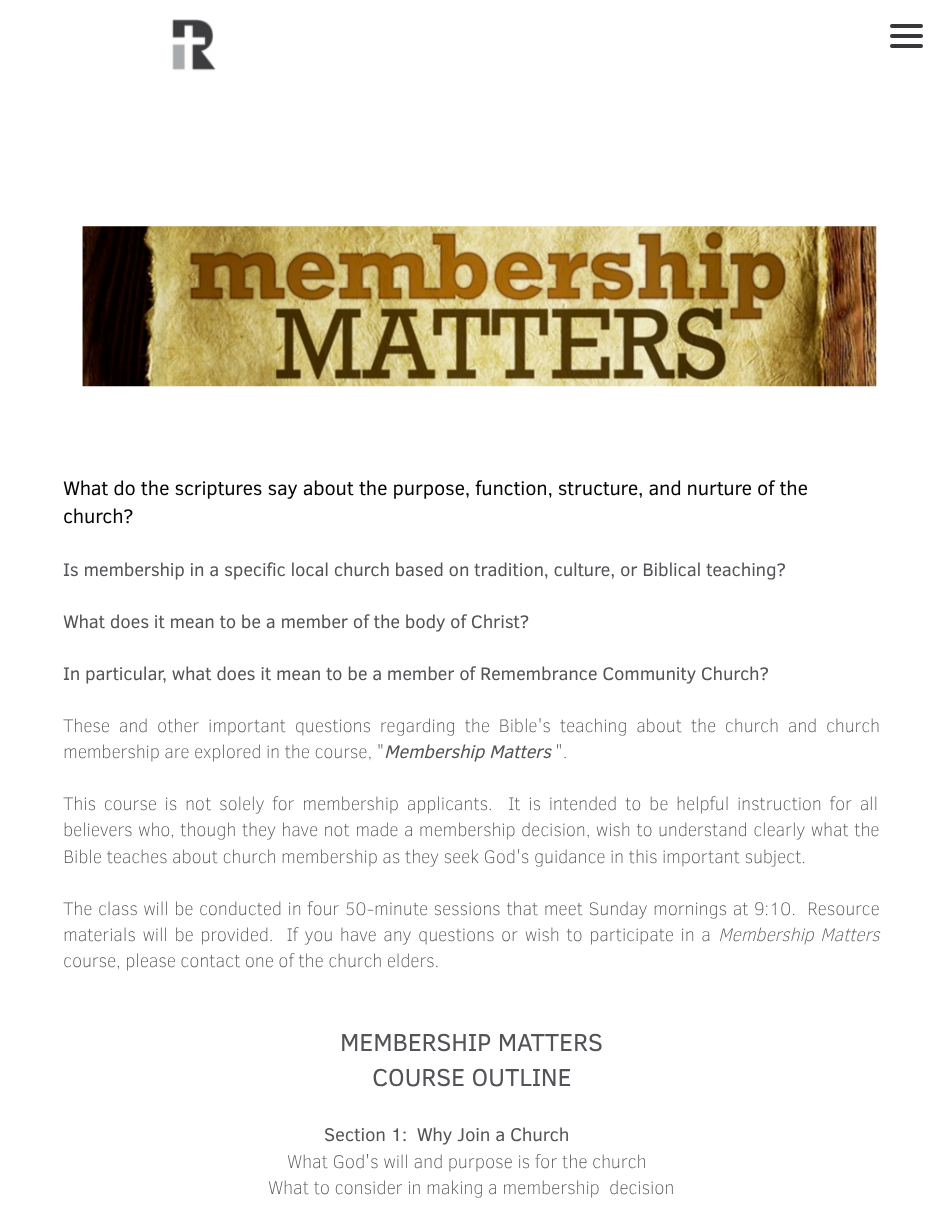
<svg xmlns="http://www.w3.org/2000/svg" xmlns:xlink="http://www.w3.org/1999/xlink" width="942" height="1225" viewBox="0 0 942 1225">
<style>
.cls-1{font:20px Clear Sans;letter-spacing:-0.2px;fill:#050505}
.cls-2{font:18.6px Clear Sans;letter-spacing:-0.19px;fill:#545458}
.cls-3{font:200 18.6px Clear Sans;letter-spacing:-0.19px;fill:#545458}
.cls-4{font:italic 18.6px Clear Sans;letter-spacing:-0.19px;fill:#545458}
.cls-5{font:italic 200 18.6px Clear Sans;letter-spacing:-0.19px;fill:#545458}
.cls-6{font:25px Clear Sans;letter-spacing:-0.19px;fill:#545458}
.cls-7{font:18.75px Clear Sans;letter-spacing:-0.19px;fill:#545458}
.cls-8{font:200 18.75px Clear Sans;letter-spacing:-0.19px;fill:#545458}
</style>
<rect width="100%" height="100%" fill="#ffffff"/>
<image xlink:href="image0.png" x="171" y="19" width="45" height="52"/>
<rect fill="#36363b" x="890" y="24" width="33" height="4" rx="2"/>
<rect fill="#36363b" x="890" y="34" width="33" height="4" rx="2"/>
<rect fill="#36363b" x="890" y="44" width="33" height="4" rx="2"/>
<image xlink:href="image1.png" x="82" y="226" width="795" height="161"/>
<text class="cls-1"><tspan x="63" y="495">What do the scriptures say about the purpose, function, structure, and nurture of the</tspan><tspan x="63" y="523">church?</tspan></text>
<text class="cls-2" x="63" y="576">Is membership in a specific local church based on tradition, culture, or Biblical teaching?</text>
<text class="cls-2" x="63" y="628">What does it mean to be a member of the body of Christ?</text>
<text class="cls-2" x="63" y="680">In particular, what does it mean to be a member of Remembrance Community Church?</text>
<text class="cls-3"><tspan x="63" y="732" word-spacing="4.25">These and other important questions regarding the Bible's teaching about the church and church</tspan><tspan x="63" y="758">membership are explored in the course, "</tspan></text>
<text class="cls-4" x="384" y="758">Membership Matters</text>
<text class="cls-3" x="555" y="758">".</text>
<text class="cls-3" xml:space="preserve"><tspan x="63" y="810" word-spacing="3.25">This course is not solely for membership applicants.  It is intended to be helpful instruction for all</tspan><tspan x="63" y="836" word-spacing="0.9">believers who, though they have not made a membership decision, wish to understand clearly what the</tspan><tspan x="63" y="863">Bible teaches about church membership as they seek God's guidance in this important subject.</tspan></text>
<text class="cls-3" xml:space="preserve"><tspan x="63" y="915" word-spacing="1">The class will be conducted in four 50-minute sessions that meet Sunday mornings at 9:10.  Resource</tspan><tspan x="63" y="941" word-spacing="2.1">materials will be provided.  If you have any questions or wish to participate in a</tspan></text>
<text class="cls-5" x="718" y="941">Membership</text>
<text class="cls-5" x="820" y="941">Matters</text>
<text class="cls-3" x="63" y="967">course, please contact one of the church elders.</text>
<text class="cls-6" x="340" y="1051">MEMBERSHIP MATTERS</text>
<text class="cls-6" x="372" y="1086">COURSE OUTLINE</text>
<text class="cls-7" xml:space="preserve" x="324" y="1141">Section 1:  Why Join a Church</text>
<text class="cls-8" x="287" y="1168">What God's will and purpose is for the church</text>
<text class="cls-8" xml:space="preserve" x="268" y="1194">What to consider in making a membership  decision</text>
</svg>
